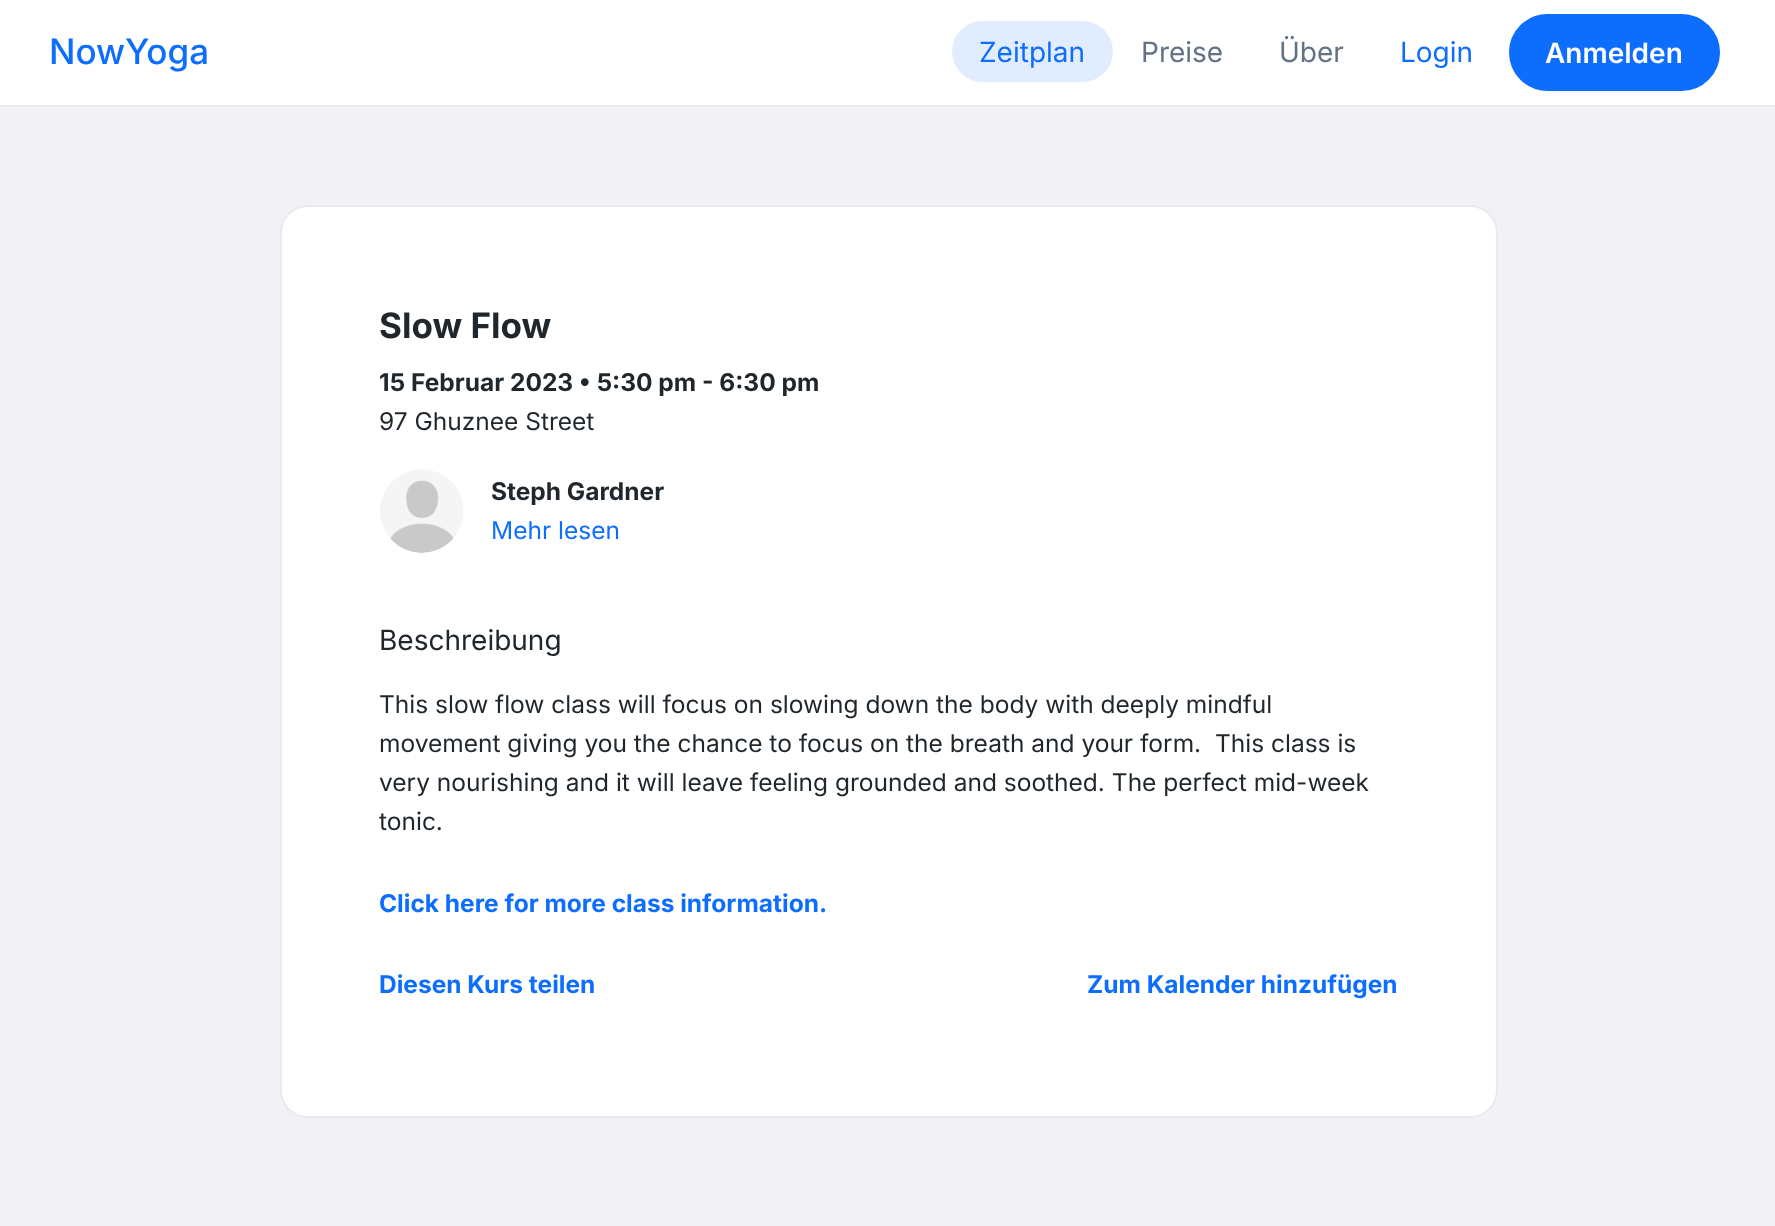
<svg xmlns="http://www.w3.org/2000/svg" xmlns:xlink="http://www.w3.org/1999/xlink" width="1775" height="1226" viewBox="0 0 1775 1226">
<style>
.cls-1{font:500 35px Inter;fill:#0d6efd}
.cls-2{font:28px Inter;fill:#0d6efd}
.cls-3{font:28px Inter;fill:#647286}
.cls-4{font:600 28px Inter;fill:#ffffff}
.cls-5{font:bold 35px Inter;fill:#1f262c}
.cls-6{font:bold 24.5px Inter;fill:#1f262c}
.cls-7{font:24.5px Inter;fill:#1f262c}
.cls-8{font:24.5px Inter;fill:#0d6efd}
.cls-9{font:28px Inter;fill:#1f262c}
.cls-10{font:bold 24.5px Inter;fill:#0d6efd}
</style>
<rect width="100%" height="100%" fill="#f2f1f6"/>
<rect fill="#ffffff" x="0" y="0" width="1775" height="105"/>
<rect fill="#e8eaed" x="0" y="105" width="1775" height="2"/>
<rect fill="#e1edff" x="952" y="21" width="161" height="61" rx="30.5"/>
<rect fill="#0d6efd" stroke="#0d6efd" stroke-width="4" x="1511" y="16" width="207" height="73" rx="36.5"/>
<rect fill="#ffffff" stroke="#e8eaed" stroke-width="2" x="281" y="206" width="1216" height="911" rx="27"/>
<image xlink:href="image0.png" x="380" y="469" width="84" height="84"/>
<text class="cls-1" x="49" y="64">NowYoga</text>
<text class="cls-2" x="979" y="62">Zeitplan</text>
<text class="cls-3" x="1141" y="62">Preise</text>
<text class="cls-3" x="1279" y="62">Über</text>
<text class="cls-2" x="1400" y="62">Login</text>
<text class="cls-4" x="1545" y="63">Anmelden</text>
<text class="cls-5" x="379" y="338">Slow Flow</text>
<text class="cls-6" x="379" y="391">15 Februar 2023 • 5:30 pm - 6:30 pm</text>
<text class="cls-7" x="379" y="430">97 Ghuznee Street</text>
<text class="cls-6" x="491" y="500">Steph Gardner</text>
<text class="cls-8" x="491" y="539">Mehr lesen</text>
<text class="cls-9" x="379" y="650">Beschreibung</text>
<text class="cls-7" xml:space="preserve"><tspan x="379" y="713">This slow flow class will focus on slowing down the body with deeply mindful</tspan><tspan x="379" y="752">movement giving you the chance to focus on the breath and your form.  This class is</tspan><tspan x="379" y="791">very nourishing and it will leave feeling grounded and soothed. The perfect mid-week</tspan><tspan x="379" y="830">tonic.</tspan></text>
<text class="cls-10" x="379" y="912">Click here for more class information.</text>
<text class="cls-10" x="379" y="993">Diesen Kurs teilen</text>
<text class="cls-10" x="1087" y="993">Zum Kalender hinzufügen</text>
</svg>
